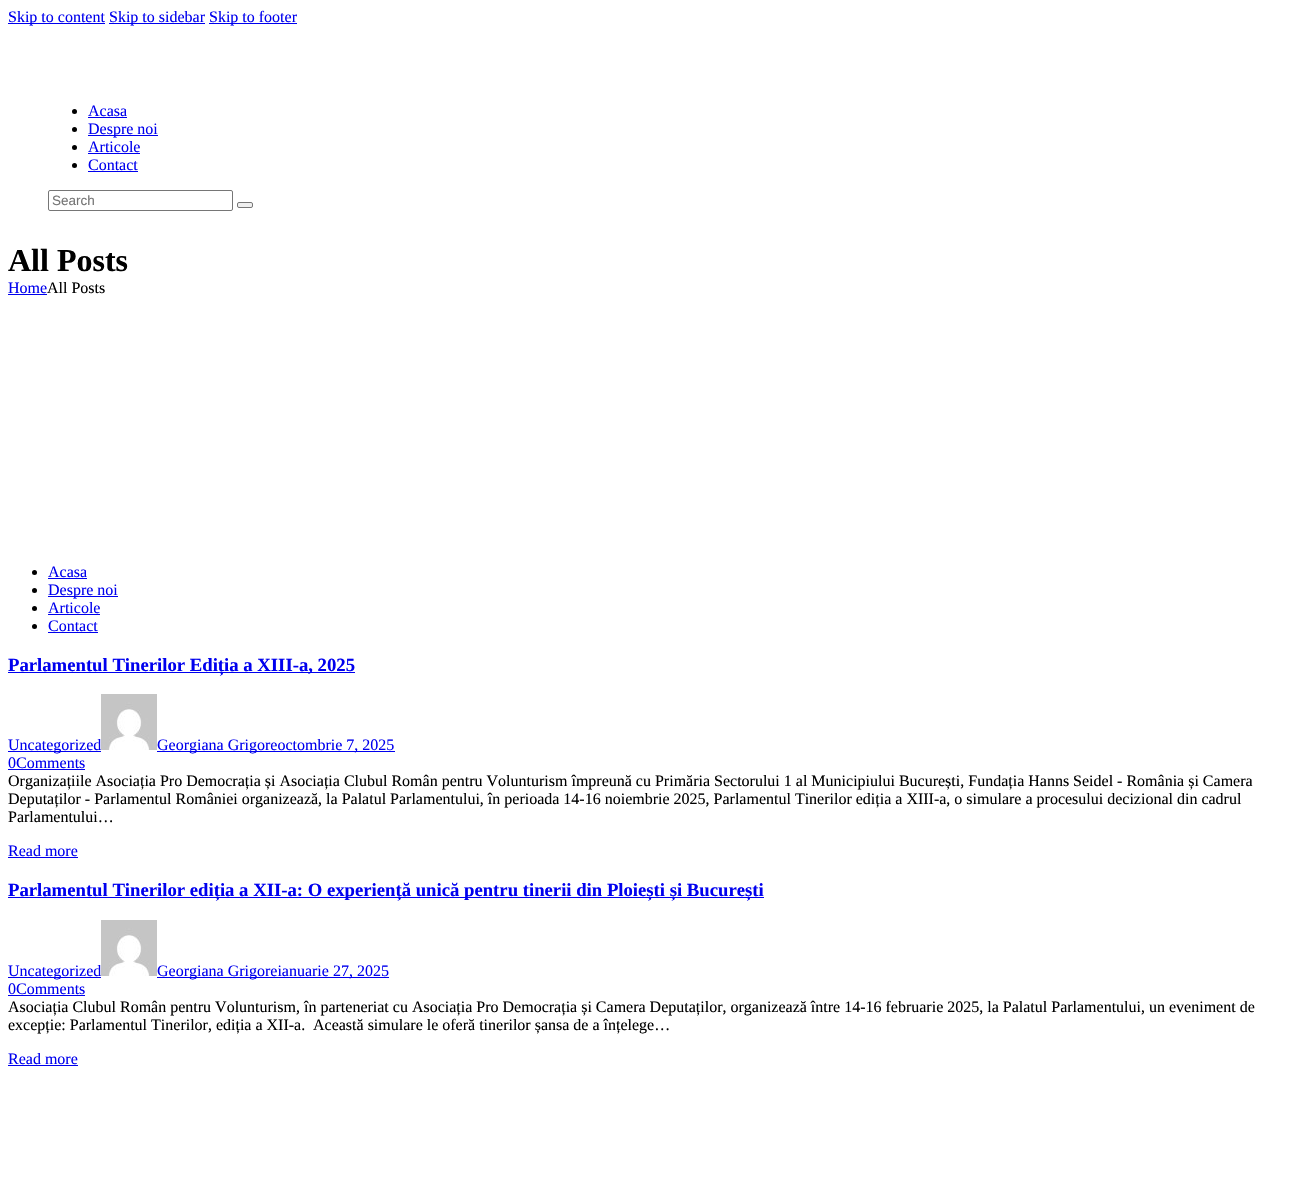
#include "include/core/SkBlurTypes.h"
#include "include/core/SkCanvas.h"
#include "include/core/SkData.h"
#include "include/core/SkFont.h"
#include "include/core/SkFontMgr.h"
#include "include/core/SkImage.h"
#include "include/core/SkMaskFilter.h"
#include "include/core/SkPaint.h"
#include "include/core/SkPathBuilder.h"
#include "include/core/SkTextBlob.h"
#include "include/effects/SkDashPathEffect.h"
#include "include/effects/SkGradientShader.h"
#include "include/utils/SkParsePath.h"

extern sk_sp<SkFontMgr> fontMgr;

static SkFont font(const char* family, int weight, float size, bool italic = false) {
    SkFontStyle style(weight, SkFontStyle::kNormal_Width,
        italic ? SkFontStyle::kItalic_Slant : SkFontStyle::kUpright_Slant);
    SkFont result(fontMgr->matchFamilyStyle(family, style), size);
    result.setSubpixel(true);
    return result;
}

static void drawLabel(SkCanvas* canvas, const char* s, float x, float y, const SkFont& font, SkColor color) {
    SkPaint ink(SkColor4f::FromColor(color));
    ink.setAntiAlias(true);
    canvas->drawString(s, x, y, font, ink);
}

static void fillRect(SkCanvas* canvas, float x, float y, float w, float h, SkColor color) {
    SkPaint ink(SkColor4f::FromColor(color));
    ink.setAntiAlias(true);
    canvas->drawRect(SkRect::MakeXYWH(x, y, w, h), ink);
}

static void drawPhoto(SkCanvas* canvas, const char* path, float x, float y, float w, float h) {
    auto image = SkImages::DeferredFromEncodedData(SkData::MakeFromFileName(path));
    canvas->drawImageRect(image, SkRect::MakeXYWH(x, y, w, h), SkSamplingOptions());
}

void draw(SkCanvas* canvas) {
    SkPaint paint;
    paint.setAntiAlias(true);
    canvas->clear(0xFFFFFFFF);
    fillRect(canvas, 8, 23, 97, 1, 0xFF0000EE);
    SkFont font1 = font("Liberation Serif", 400, 16);
    drawLabel(canvas, "Skip to content", 8, 22, font1, 0xFF0000EE);
    fillRect(canvas, 109, 23, 96, 1, 0xFF0000EE);
    drawLabel(canvas, "Skip to sidebar", 109, 22, font1, 0xFF0000EE);
    fillRect(canvas, 209, 23, 88, 1, 0xFF0000EE);
    drawLabel(canvas, "Skip to footer", 209, 22, font1, 0xFF0000EE);
    paint.setColor(0xFF000000);
    canvas->drawCircle(74.5f, 111.5f, 2.5f, paint);
    drawLabel(canvas, "Acasa", 88, 116, font1, 0xFF0000EE);
    fillRect(canvas, 88, 117, 39, 1, 0xFF0000EE);
    canvas->drawCircle(74.5f, 129.5f, 2.5f, paint);
    fillRect(canvas, 88, 135, 70, 1, 0xFF0000EE);
    drawLabel(canvas, "Despre noi", 88, 134, font1, 0xFF0000EE);
    canvas->drawCircle(74.5f, 147.5f, 2.5f, paint);
    drawLabel(canvas, "Articole", 88, 152, font1, 0xFF0000EE);
    fillRect(canvas, 88, 153, 52, 1, 0xFF0000EE);
    canvas->drawCircle(74.5f, 165.5f, 2.5f, paint);
    drawLabel(canvas, "Contact", 88, 170, font1, 0xFF0000EE);
    fillRect(canvas, 88, 171, 50, 1, 0xFF0000EE);
    paint.setStroke(true);
    paint.setStrokeWidth(1);
    paint.setColor(0xFF767676);
    canvas->drawRoundRect(SkRect::MakeXYWH(48.5f, 190.5f, 184, 20), 1.5f, 1.5f, paint);
    SkFont font2 = font("Liberation Sans", 400, 13.5f);
    drawLabel(canvas, "Search", 52, 205, font2, 0xFF757575);
    paint.setStroke(false);
    paint.setColor(0xFFEFEFEF);
    canvas->drawRoundRect(SkRect::MakeXYWH(237.5f, 202.5f, 15, 5), 1.5f, 1.5f, paint);
    paint.setStroke(true);
    paint.setColor(0xFF767676);
    canvas->drawRoundRect(SkRect::MakeXYWH(237.5f, 202.5f, 15, 5), 1.5f, 1.5f, paint);
    SkFont font3 = font("Liberation Serif", 700, 32);
    drawLabel(canvas, "All Posts", 8, 271, font3, 0xFF000000);
    drawLabel(canvas, "Home", 8, 293, font1, 0xFF0000EE);
    fillRect(canvas, 8, 294, 39, 1, 0xFF0000EE);
    drawLabel(canvas, "All Posts", 47, 293, font1, 0xFF000000);
    paint.setStroke(false);
    paint.setColor(0xFF000000);
    canvas->drawCircle(34.5f, 572.5f, 2.5f, paint);
    drawLabel(canvas, "Acasa", 48, 577, font1, 0xFF0000EE);
    fillRect(canvas, 48, 578, 39, 1, 0xFF0000EE);
    canvas->drawCircle(34.5f, 590.5f, 2.5f, paint);
    fillRect(canvas, 48, 596, 70, 1, 0xFF0000EE);
    drawLabel(canvas, "Despre noi", 48, 595, font1, 0xFF0000EE);
    canvas->drawCircle(34.5f, 608.5f, 2.5f, paint);
    drawLabel(canvas, "Articole", 48, 613, font1, 0xFF0000EE);
    fillRect(canvas, 48, 614, 52, 1, 0xFF0000EE);
    canvas->drawCircle(34.5f, 626.5f, 2.5f, paint);
    drawLabel(canvas, "Contact", 48, 631, font1, 0xFF0000EE);
    fillRect(canvas, 48, 632, 50, 1, 0xFF0000EE);
    fillRect(canvas, 8, 672, 347, 1, 0xFF0000EE);
    SkFont font4 = font("Liberation Serif", 700, 18.7f);
    drawLabel(canvas, "Parlamentul Tinerilor Ediția a XIII-a, 2025", 8, 671, font4, 0xFF0000EE);
    fillRect(canvas, 8, 751, 93, 1, 0xFF0000EE);
    drawLabel(canvas, "Uncategorized", 8, 750, font1, 0xFF0000EE);
    drawPhoto(canvas, "assets/img1.png", 101, 694, 56, 56);
    fillRect(canvas, 157, 751, 238, 1, 0xFF0000EE);
    drawLabel(canvas, "Georgiana Grigoreoctombrie 7, 2025", 157, 750, font1, 0xFF0000EE);
    drawLabel(canvas, "0Comments", 8, 768, font1, 0xFF0000EE);
    fillRect(canvas, 8, 769, 77, 1, 0xFF0000EE);
    drawLabel(canvas, "Organizațiile Asociația Pro Democrația și Asociația Clubul Român pentru Volunturism împreună cu Primăria Sectorului 1 al Municipiului București, Fundația Hanns Seidel - România și Camera", 8, 786, font1, 0xFF000000);
    drawLabel(canvas, "Deputaților - Parlamentul României organizează, la Palatul Parlamentului, în perioada 14-16 noiembrie 2025, Parlamentul Tinerilor ediția a XIII-a, o simulare a procesului decizional din cadrul", 8, 804, font1, 0xFF000000);
    drawLabel(canvas, "Parlamentului…", 8, 822, font1, 0xFF000000);
    drawLabel(canvas, "Read more", 8, 856, font1, 0xFF0000EE);
    fillRect(canvas, 8, 857, 70, 1, 0xFF0000EE);
    fillRect(canvas, 8, 897, 756, 1, 0xFF0000EE);
    drawLabel(canvas, "Parlamentul Tinerilor ediția a XII-a: O experiență unică pentru tinerii din Ploiești și București", 8, 896, font4, 0xFF0000EE);
    fillRect(canvas, 8, 977, 93, 1, 0xFF0000EE);
    drawLabel(canvas, "Uncategorized", 8, 976, font1, 0xFF0000EE);
    drawPhoto(canvas, "assets/img1.png", 101, 920, 56, 56);
    fillRect(canvas, 157, 977, 232, 1, 0xFF0000EE);
    drawLabel(canvas, "Georgiana Grigoreianuarie 27, 2025", 157, 976, font1, 0xFF0000EE);
    drawLabel(canvas, "0Comments", 8, 994, font1, 0xFF0000EE);
    fillRect(canvas, 8, 995, 77, 1, 0xFF0000EE);
    drawLabel(canvas, "Asociația Clubul Român pentru Volunturism, în parteneriat cu Asociația Pro Democrația și Camera Deputaților, organizează între 14-16 februarie 2025, la Palatul Parlamentului, un eveniment de", 8, 1012, font1, 0xFF000000);
    drawLabel(canvas, "excepție: Parlamentul Tinerilor, ediția a XII-a.", 8, 1030, font1, 0xFF000000);
    drawLabel(canvas, "Această simulare le oferă tinerilor șansa de a înțelege…", 313, 1030, font1, 0xFF000000);
    drawLabel(canvas, "Read more", 8, 1064, font1, 0xFF0000EE);
    fillRect(canvas, 8, 1065, 70, 1, 0xFF0000EE);
}
